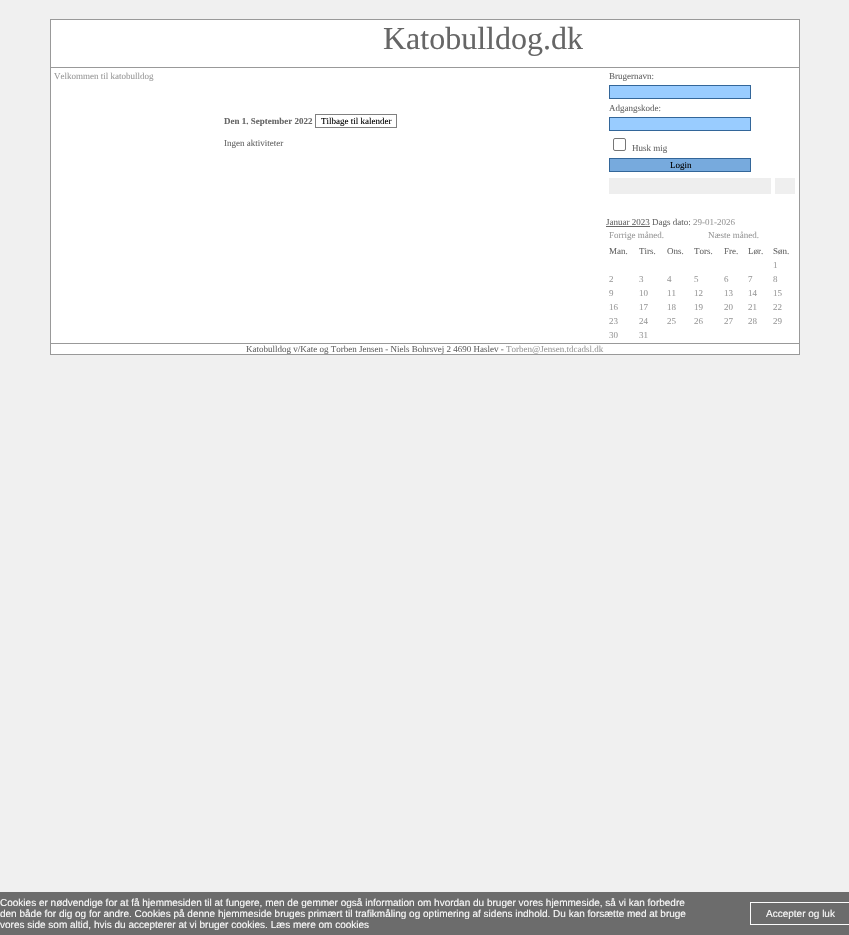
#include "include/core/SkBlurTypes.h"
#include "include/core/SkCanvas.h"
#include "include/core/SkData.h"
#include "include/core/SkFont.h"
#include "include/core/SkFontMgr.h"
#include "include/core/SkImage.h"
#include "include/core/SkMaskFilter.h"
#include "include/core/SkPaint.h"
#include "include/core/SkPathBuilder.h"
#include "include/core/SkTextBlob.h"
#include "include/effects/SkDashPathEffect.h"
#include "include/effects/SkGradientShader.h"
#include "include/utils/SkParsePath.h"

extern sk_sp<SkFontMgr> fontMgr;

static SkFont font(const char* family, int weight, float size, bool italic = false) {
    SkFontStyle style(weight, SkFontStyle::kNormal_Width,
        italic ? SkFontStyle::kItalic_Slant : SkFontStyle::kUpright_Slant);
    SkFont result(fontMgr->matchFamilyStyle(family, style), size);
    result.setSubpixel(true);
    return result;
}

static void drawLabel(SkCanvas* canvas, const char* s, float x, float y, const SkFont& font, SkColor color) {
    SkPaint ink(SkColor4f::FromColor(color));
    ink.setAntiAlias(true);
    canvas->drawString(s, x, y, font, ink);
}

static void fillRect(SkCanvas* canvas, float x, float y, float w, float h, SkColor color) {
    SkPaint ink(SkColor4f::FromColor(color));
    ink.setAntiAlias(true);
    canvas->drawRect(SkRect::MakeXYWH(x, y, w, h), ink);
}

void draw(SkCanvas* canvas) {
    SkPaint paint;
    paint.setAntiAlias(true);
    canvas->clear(0xFFF0F0F0);
    fillRect(canvas, 50, 19, 750, 336, 0xFF999999);
    fillRect(canvas, 51, 20, 748, 47, 0xFFFFFFFF);
    SkFont font1 = font("Liberation Serif", 400, 32);
    drawLabel(canvas, "Katobulldog.dk", 383, 49, font1, 0xFF666666);
    fillRect(canvas, 51, 68, 748, 275, 0xFFFFFFFF);
    SkFont font2 = font("Liberation Serif", 400, 9);
    drawLabel(canvas, "Velkommen til katobulldog", 54, 79, font2, 0xFF999999);
    SkFont font3 = font("Liberation Serif", 700, 9);
    drawLabel(canvas, "Den 1. September 2022", 224, 124, font3, 0xFF666666);
    paint.setStroke(true);
    paint.setStrokeWidth(1);
    paint.setColor(0xFF808080);
    canvas->drawRect(SkRect::MakeXYWH(315.5f, 114.5f, 81, 13), paint);
    drawLabel(canvas, "Tilbage til kalender", 321, 124, font2, 0xFF000000);
    drawLabel(canvas, "Ingen aktiviteter", 224, 146, font2, 0xFF666666);
    drawLabel(canvas, "Brugernavn:", 609, 79, font2, 0xFF666666);
    paint.setStroke(false);
    paint.setColor(0xFF99CCFF);
    canvas->drawRect(SkRect::MakeXYWH(609.5f, 85.5f, 141, 13), paint);
    paint.setStroke(true);
    paint.setColor(0xFF336699);
    canvas->drawRect(SkRect::MakeXYWH(609.5f, 85.5f, 141, 13), paint);
    drawLabel(canvas, "Adgangskode:", 609, 111, font2, 0xFF666666);
    paint.setStroke(false);
    paint.setColor(0xFF99CCFF);
    canvas->drawRect(SkRect::MakeXYWH(609.5f, 117.5f, 141, 13), paint);
    paint.setStroke(true);
    paint.setColor(0xFF336699);
    canvas->drawRect(SkRect::MakeXYWH(609.5f, 117.5f, 141, 13), paint);
    paint.setColor(0xFF767676);
    canvas->drawRoundRect(SkRect::MakeXYWH(613.5f, 138.5f, 12, 12), 1.5f, 1.5f, paint);
    drawLabel(canvas, "Husk mig", 632, 151, font2, 0xFF666666);
    paint.setStroke(false);
    paint.setColor(0xFF77AADD);
    canvas->drawRect(SkRect::MakeXYWH(609.5f, 158.5f, 141, 13), paint);
    paint.setStroke(true);
    paint.setColor(0xFF336699);
    canvas->drawRect(SkRect::MakeXYWH(609.5f, 158.5f, 141, 13), paint);
    drawLabel(canvas, "Login", 670, 168, font2, 0xFF000000);
    fillRect(canvas, 609, 178, 162, 16, 0xFFEEEEEE);
    fillRect(canvas, 775, 178, 20, 16, 0xFFEFEFEF);
    fillRect(canvas, 606, 226, 44, 1, 0xFF666666);
    drawLabel(canvas, "Januar 2023 Dags dato:", 606, 225, font2, 0xFF666666);
    drawLabel(canvas, "29-01-2026", 693, 225, font2, 0xFF999999);
    drawLabel(canvas, "Forrige måned.", 609, 238, font2, 0xFF999999);
    drawLabel(canvas, "Næste måned.", 708, 238, font2, 0xFF999999);
    drawLabel(canvas, "Man.", 609, 254, font2, 0xFF666666);
    drawLabel(canvas, "Tirs.", 639, 254, font2, 0xFF666666);
    drawLabel(canvas, "Ons.", 667, 254, font2, 0xFF666666);
    drawLabel(canvas, "Tors.", 694, 254, font2, 0xFF666666);
    drawLabel(canvas, "Fre.", 724, 254, font2, 0xFF666666);
    drawLabel(canvas, "Lør.", 748, 254, font2, 0xFF666666);
    drawLabel(canvas, "Søn.", 773, 254, font2, 0xFF666666);
    drawLabel(canvas, "1", 773, 268, font2, 0xFF999999);
    drawLabel(canvas, "2", 609, 282, font2, 0xFF999999);
    drawLabel(canvas, "3", 639, 282, font2, 0xFF999999);
    drawLabel(canvas, "4", 667, 282, font2, 0xFF999999);
    drawLabel(canvas, "5", 694, 282, font2, 0xFF999999);
    drawLabel(canvas, "6", 724, 282, font2, 0xFF999999);
    drawLabel(canvas, "7", 748, 282, font2, 0xFF999999);
    drawLabel(canvas, "8", 773, 282, font2, 0xFF999999);
    drawLabel(canvas, "9", 609, 296, font2, 0xFF999999);
    drawLabel(canvas, "10", 639, 296, font2, 0xFF999999);
    drawLabel(canvas, "11", 667, 296, font2, 0xFF999999);
    drawLabel(canvas, "12", 694, 296, font2, 0xFF999999);
    drawLabel(canvas, "13", 724, 296, font2, 0xFF999999);
    drawLabel(canvas, "14", 748, 296, font2, 0xFF999999);
    drawLabel(canvas, "15", 773, 296, font2, 0xFF999999);
    drawLabel(canvas, "16", 609, 310, font2, 0xFF999999);
    drawLabel(canvas, "17", 639, 310, font2, 0xFF999999);
    drawLabel(canvas, "18", 667, 310, font2, 0xFF999999);
    drawLabel(canvas, "19", 694, 310, font2, 0xFF999999);
    drawLabel(canvas, "20", 724, 310, font2, 0xFF999999);
    drawLabel(canvas, "21", 748, 310, font2, 0xFF999999);
    drawLabel(canvas, "22", 773, 310, font2, 0xFF999999);
    drawLabel(canvas, "23", 609, 324, font2, 0xFF999999);
    drawLabel(canvas, "24", 639, 324, font2, 0xFF999999);
    drawLabel(canvas, "25", 667, 324, font2, 0xFF999999);
    drawLabel(canvas, "26", 694, 324, font2, 0xFF999999);
    drawLabel(canvas, "27", 724, 324, font2, 0xFF999999);
    drawLabel(canvas, "28", 748, 324, font2, 0xFF999999);
    drawLabel(canvas, "29", 773, 324, font2, 0xFF999999);
    drawLabel(canvas, "30", 609, 338, font2, 0xFF999999);
    drawLabel(canvas, "31", 639, 338, font2, 0xFF999999);
    fillRect(canvas, 51, 344, 748, 10, 0xFFFFFFFF);
    drawLabel(canvas, "Katobulldog v/Kate og Torben Jensen - Niels Bohrsvej 2 4690 Haslev -", 246, 352, font2, 0xFF666666);
    drawLabel(canvas, "Torben@Jensen.tdcadsl.dk", 506, 352, font2, 0xFF999999);
    fillRect(canvas, 0, 892, 849, 43, 0xFF6C6C6C);
    SkFont font4 = font("Liberation Sans", 400, 10);
    drawLabel(canvas, "Cookies er nødvendige for at få hjemmesiden til at fungere, men de gemmer også information om hvordan du bruger vores hjemmeside, så vi kan forbedre", 0, 906, font4, 0xFFFBFBFB);
    drawLabel(canvas, "den både for dig og for andre. Cookies på denne hjemmeside bruges primært til trafikmåling og optimering af sidens indhold. Du kan forsætte med at bruge", 0, 917, font4, 0xFFFBFBFB);
    drawLabel(canvas, "vores side som altid, hvis du accepterer at vi bruger cookies. Læs mere om cookies", 0, 928, font4, 0xFFFBFBFB);
    paint.setColor(0xFFFBFBFB);
    canvas->drawRect(SkRect::MakeXYWH(750.5f, 902.5f, 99, 22), paint);
    drawLabel(canvas, "Accepter og luk", 766, 917, font4, 0xFFFBFBFB);
}
